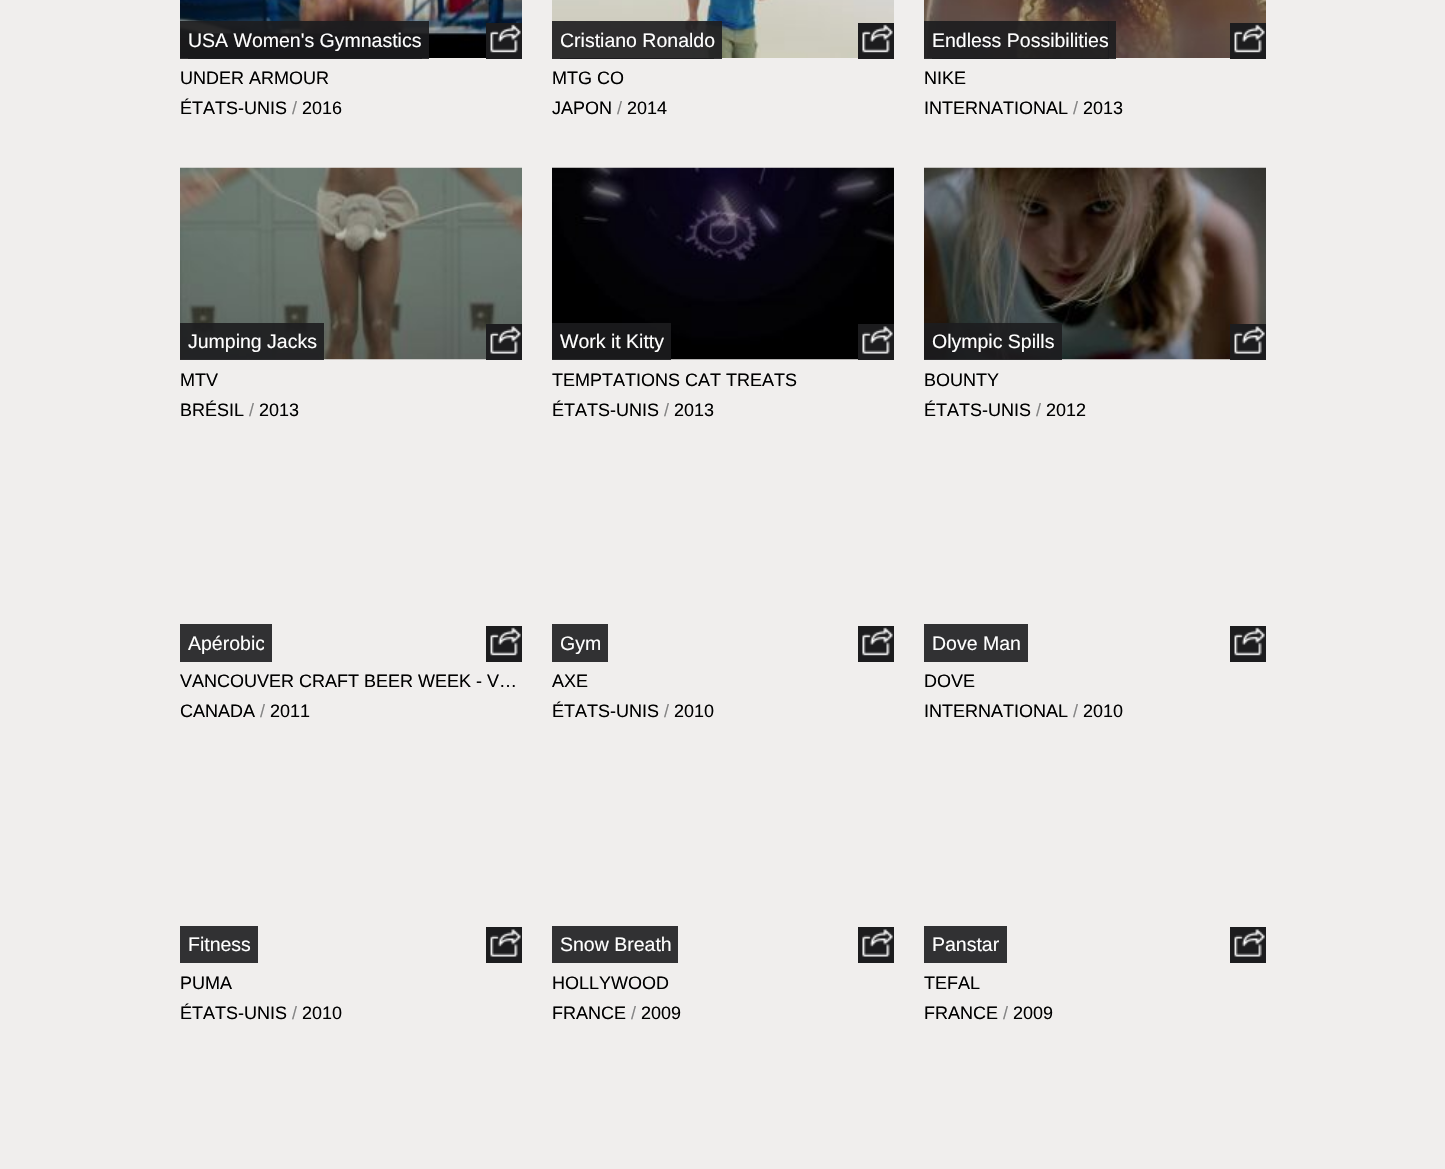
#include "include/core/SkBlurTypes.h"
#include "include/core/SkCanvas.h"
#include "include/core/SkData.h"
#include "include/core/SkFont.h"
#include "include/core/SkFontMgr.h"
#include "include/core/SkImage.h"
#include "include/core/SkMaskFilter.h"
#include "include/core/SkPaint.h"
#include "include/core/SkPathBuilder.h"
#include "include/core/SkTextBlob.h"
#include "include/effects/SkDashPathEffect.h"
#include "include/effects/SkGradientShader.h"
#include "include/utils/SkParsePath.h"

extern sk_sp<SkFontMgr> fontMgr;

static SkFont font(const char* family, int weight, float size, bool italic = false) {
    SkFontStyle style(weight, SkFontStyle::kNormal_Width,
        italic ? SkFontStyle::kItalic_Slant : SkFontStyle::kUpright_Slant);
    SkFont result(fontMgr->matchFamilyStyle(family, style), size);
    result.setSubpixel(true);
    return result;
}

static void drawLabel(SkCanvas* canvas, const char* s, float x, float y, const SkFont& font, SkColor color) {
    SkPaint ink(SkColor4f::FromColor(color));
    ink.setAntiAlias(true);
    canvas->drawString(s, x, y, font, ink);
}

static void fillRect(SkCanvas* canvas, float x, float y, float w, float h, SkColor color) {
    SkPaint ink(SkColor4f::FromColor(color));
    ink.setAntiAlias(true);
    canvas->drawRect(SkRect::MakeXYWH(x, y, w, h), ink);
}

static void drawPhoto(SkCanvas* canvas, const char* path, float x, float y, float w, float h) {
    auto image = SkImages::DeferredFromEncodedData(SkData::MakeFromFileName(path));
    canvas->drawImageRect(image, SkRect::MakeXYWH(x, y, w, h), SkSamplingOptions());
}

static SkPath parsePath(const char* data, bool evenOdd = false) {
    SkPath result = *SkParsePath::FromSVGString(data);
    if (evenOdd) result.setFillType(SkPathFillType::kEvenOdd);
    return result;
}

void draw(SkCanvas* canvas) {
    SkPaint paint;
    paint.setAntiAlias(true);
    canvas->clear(0xFFF0EEED);
    drawPhoto(canvas, "assets/img1.png", 180, 0, 342, 58);
    paint.setColor(0xE61C1C1E);
    canvas->drawPath(parsePath("M180 21V59H414V58H188V21Z"), paint);
    canvas->drawPath(parsePath("M195 58V59H429V21H422V58Z"), paint);
    fillRect(canvas, 188, 21, 234, 38, 0xE61C1C1E);
    SkFont font1 = font("Liberation Sans", 400, 19.5f);
    drawLabel(canvas, "USA Women's Gymnastics", 188, 47, font1, 0xFFFFFFFF);
    fillRect(canvas, 486, 23, 36, 36, 0xFF1C1C1E);
    drawPhoto(canvas, "assets/img2.png", 490, 24, 31, 29);
    SkFont font2 = font("Liberation Sans", 400, 18);
    drawLabel(canvas, "UNDER ARMOUR", 180, 84, font2, 0xFF000000);
    drawLabel(canvas, "ÉTATS-UNIS", 180, 114, font2, 0xFF000000);
    drawLabel(canvas, "/", 292, 114, font2, 0xFF858585);
    drawLabel(canvas, "2016", 302, 114, font2, 0xFF000000);
    drawPhoto(canvas, "assets/img3.png", 552, 0, 342, 58);
    canvas->drawPath(parsePath("M552 21V59H707V58H560V21Z"), paint);
    canvas->drawPath(parsePath("M567 58V59H722V21H714V58Z"), paint);
    fillRect(canvas, 560, 21, 154, 38, 0xE61C1C1E);
    drawLabel(canvas, "Cristiano Ronaldo", 560, 47, font1, 0xFFFFFFFF);
    fillRect(canvas, 858, 23, 36, 36, 0xFF1C1C1E);
    drawPhoto(canvas, "assets/img4.png", 862, 24, 31, 29);
    drawLabel(canvas, "MTG CO", 552, 84, font2, 0xFF000000);
    drawLabel(canvas, "JAPON", 552, 114, font2, 0xFF000000);
    drawLabel(canvas, "/", 617, 114, font2, 0xFF858585);
    drawLabel(canvas, "2014", 627, 114, font2, 0xFF000000);
    drawPhoto(canvas, "assets/img5.png", 924, 0, 342, 58);
    canvas->drawPath(parsePath("M924 21V59H1101V58H932V21Z"), paint);
    canvas->drawPath(parsePath("M939 58V59H1116V21H1108V58Z"), paint);
    fillRect(canvas, 932, 21, 177, 38, 0xE61C1C1E);
    drawLabel(canvas, "Endless Possibilities", 932, 47, font1, 0xFFFFFFFF);
    fillRect(canvas, 1230, 23, 36, 36, 0xFF1C1C1E);
    drawPhoto(canvas, "assets/img6.png", 1234, 24, 31, 29);
    drawLabel(canvas, "NIKE", 924, 84, font2, 0xFF000000);
    drawLabel(canvas, "INTERNATIONAL", 924, 114, font2, 0xFF000000);
    drawLabel(canvas, "/", 1073, 114, font2, 0xFF858585);
    drawLabel(canvas, "2013", 1083, 114, font2, 0xFF000000);
    drawPhoto(canvas, "assets/img7.png", 180, 167, 342, 193);
    fillRect(canvas, 180, 323, 8, 37, 0xE61C1C1E);
    fillRect(canvas, 188, 323, 129, 37, 0xE61C1C1E);
    drawLabel(canvas, "Jumping Jacks", 188, 348, font1, 0xFFFFFFFF);
    fillRect(canvas, 317, 323, 7, 37, 0xE61C1C1E);
    fillRect(canvas, 486, 324, 36, 36, 0xFF1C1C1E);
    drawPhoto(canvas, "assets/img8.png", 490, 326, 31, 28);
    drawLabel(canvas, "MTV", 180, 386, font2, 0xFF000000);
    drawLabel(canvas, "BRÉSIL", 180, 416, font2, 0xFF000000);
    drawLabel(canvas, "/", 249, 416, font2, 0xFF858585);
    drawLabel(canvas, "2013", 259, 416, font2, 0xFF000000);
    drawPhoto(canvas, "assets/img9.png", 552, 167, 342, 193);
    fillRect(canvas, 552, 323, 8, 37, 0xE61C1C1E);
    fillRect(canvas, 663, 323, 8, 37, 0xE61C1C1E);
    fillRect(canvas, 560, 323, 103, 37, 0xE61C1C1E);
    drawLabel(canvas, "Work it Kitty", 560, 348, font1, 0xFFFFFFFF);
    fillRect(canvas, 858, 324, 36, 36, 0xFF1C1C1E);
    drawPhoto(canvas, "assets/img10.png", 862, 326, 31, 28);
    drawLabel(canvas, "TEMPTATIONS CAT TREATS", 552, 386, font2, 0xFF000000);
    drawLabel(canvas, "ÉTATS-UNIS", 552, 416, font2, 0xFF000000);
    drawLabel(canvas, "/", 664, 416, font2, 0xFF858585);
    drawLabel(canvas, "2013", 674, 416, font2, 0xFF000000);
    drawPhoto(canvas, "assets/img11.png", 924, 167, 342, 193);
    fillRect(canvas, 932, 323, 123, 37, 0xE61C1C1E);
    drawLabel(canvas, "Olympic Spills", 932, 348, font1, 0xFFFFFFFF);
    fillRect(canvas, 924, 323, 8, 37, 0xE61C1C1E);
    fillRect(canvas, 1055, 323, 7, 37, 0xE61C1C1E);
    fillRect(canvas, 1230, 324, 36, 36, 0xFF1C1C1E);
    drawPhoto(canvas, "assets/img12.png", 1234, 326, 31, 28);
    drawLabel(canvas, "BOUNTY", 924, 386, font2, 0xFF000000);
    drawLabel(canvas, "ÉTATS-UNIS", 924, 416, font2, 0xFF000000);
    drawLabel(canvas, "/", 1036, 416, font2, 0xFF858585);
    drawLabel(canvas, "2012", 1046, 416, font2, 0xFF000000);
    paint.setColor(0xFF313133);
    canvas->drawPath(parsePath("M180 624V662H257H188V624Z"), paint);
    fillRect(canvas, 188, 624, 76, 38, 0xFF313133);
    drawLabel(canvas, "Apérobic", 188, 650, font1, 0xFFFFFFFF);
    canvas->drawPath(parsePath("M195 662H272V624H264V662Z"), paint);
    fillRect(canvas, 486, 626, 36, 36, 0xFF1C1C1E);
    drawPhoto(canvas, "assets/img2.png", 490, 627, 31, 29);
    drawLabel(canvas, "VANCOUVER CRAFT BEER WEEK - V…", 180, 687, font2, 0xFF000000);
    drawLabel(canvas, "CANADA", 180, 717, font2, 0xFF000000);
    drawLabel(canvas, "/", 260, 717, font2, 0xFF858585);
    drawLabel(canvas, "2011", 270, 717, font2, 0xFF000000);
    canvas->drawPath(parsePath("M552 624V662H593H560V624ZM567 662H608V624H600V662Z"), paint);
    fillRect(canvas, 560, 624, 40, 38, 0xFF313133);
    drawLabel(canvas, "Gym", 560, 650, font1, 0xFFFFFFFF);
    fillRect(canvas, 858, 626, 36, 36, 0xFF1C1C1E);
    drawPhoto(canvas, "assets/img4.png", 862, 627, 31, 29);
    drawLabel(canvas, "AXE", 552, 687, font2, 0xFF000000);
    drawLabel(canvas, "ÉTATS-UNIS", 552, 717, font2, 0xFF000000);
    drawLabel(canvas, "/", 664, 717, font2, 0xFF858585);
    drawLabel(canvas, "2010", 674, 717, font2, 0xFF000000);
    fillRect(canvas, 932, 624, 88, 38, 0xFF313133);
    drawLabel(canvas, "Dove Man", 932, 650, font1, 0xFFFFFFFF);
    canvas->drawPath(parsePath("M924 624V662H1013H932V624Z"), paint);
    canvas->drawPath(parsePath("M939 662H1028V624H1020V662Z"), paint);
    fillRect(canvas, 1230, 626, 36, 36, 0xFF1C1C1E);
    drawPhoto(canvas, "assets/img6.png", 1234, 627, 31, 29);
    drawLabel(canvas, "DOVE", 924, 687, font2, 0xFF000000);
    drawLabel(canvas, "INTERNATIONAL", 924, 717, font2, 0xFF000000);
    drawLabel(canvas, "/", 1073, 717, font2, 0xFF858585);
    drawLabel(canvas, "2010", 1083, 717, font2, 0xFF000000);
    fillRect(canvas, 188, 926, 70, 37, 0xFF313133);
    drawLabel(canvas, "Fitness", 188, 951, font1, 0xFFFFFFFF);
    fillRect(canvas, 180, 926, 8, 37, 0xFF313133);
    fillRect(canvas, 486, 927, 36, 36, 0xFF1C1C1E);
    drawPhoto(canvas, "assets/img8.png", 490, 929, 31, 28);
    drawLabel(canvas, "PUMA", 180, 989, font2, 0xFF000000);
    drawLabel(canvas, "ÉTATS-UNIS", 180, 1019, font2, 0xFF000000);
    drawLabel(canvas, "/", 292, 1019, font2, 0xFF858585);
    drawLabel(canvas, "2010", 302, 1019, font2, 0xFF000000);
    fillRect(canvas, 560, 926, 118, 37, 0xFF313133);
    drawLabel(canvas, "Snow Breath", 560, 951, font1, 0xFFFFFFFF);
    fillRect(canvas, 552, 926, 8, 37, 0xFF313133);
    fillRect(canvas, 858, 927, 36, 36, 0xFF1C1C1E);
    drawPhoto(canvas, "assets/img10.png", 862, 929, 31, 28);
    drawLabel(canvas, "HOLLYWOOD", 552, 989, font2, 0xFF000000);
    drawLabel(canvas, "FRANCE", 552, 1019, font2, 0xFF000000);
    drawLabel(canvas, "/", 631, 1019, font2, 0xFF858585);
    drawLabel(canvas, "2009", 641, 1019, font2, 0xFF000000);
    fillRect(canvas, 932, 926, 75, 37, 0xFF313133);
    drawLabel(canvas, "Panstar", 932, 951, font1, 0xFFFFFFFF);
    fillRect(canvas, 924, 926, 8, 37, 0xFF313133);
    fillRect(canvas, 1230, 927, 36, 36, 0xFF1C1C1E);
    drawPhoto(canvas, "assets/img12.png", 1234, 929, 31, 28);
    drawLabel(canvas, "TEFAL", 924, 989, font2, 0xFF000000);
    drawLabel(canvas, "FRANCE", 924, 1019, font2, 0xFF000000);
    drawLabel(canvas, "/", 1003, 1019, font2, 0xFF858585);
    drawLabel(canvas, "2009", 1013, 1019, font2, 0xFF000000);
}
